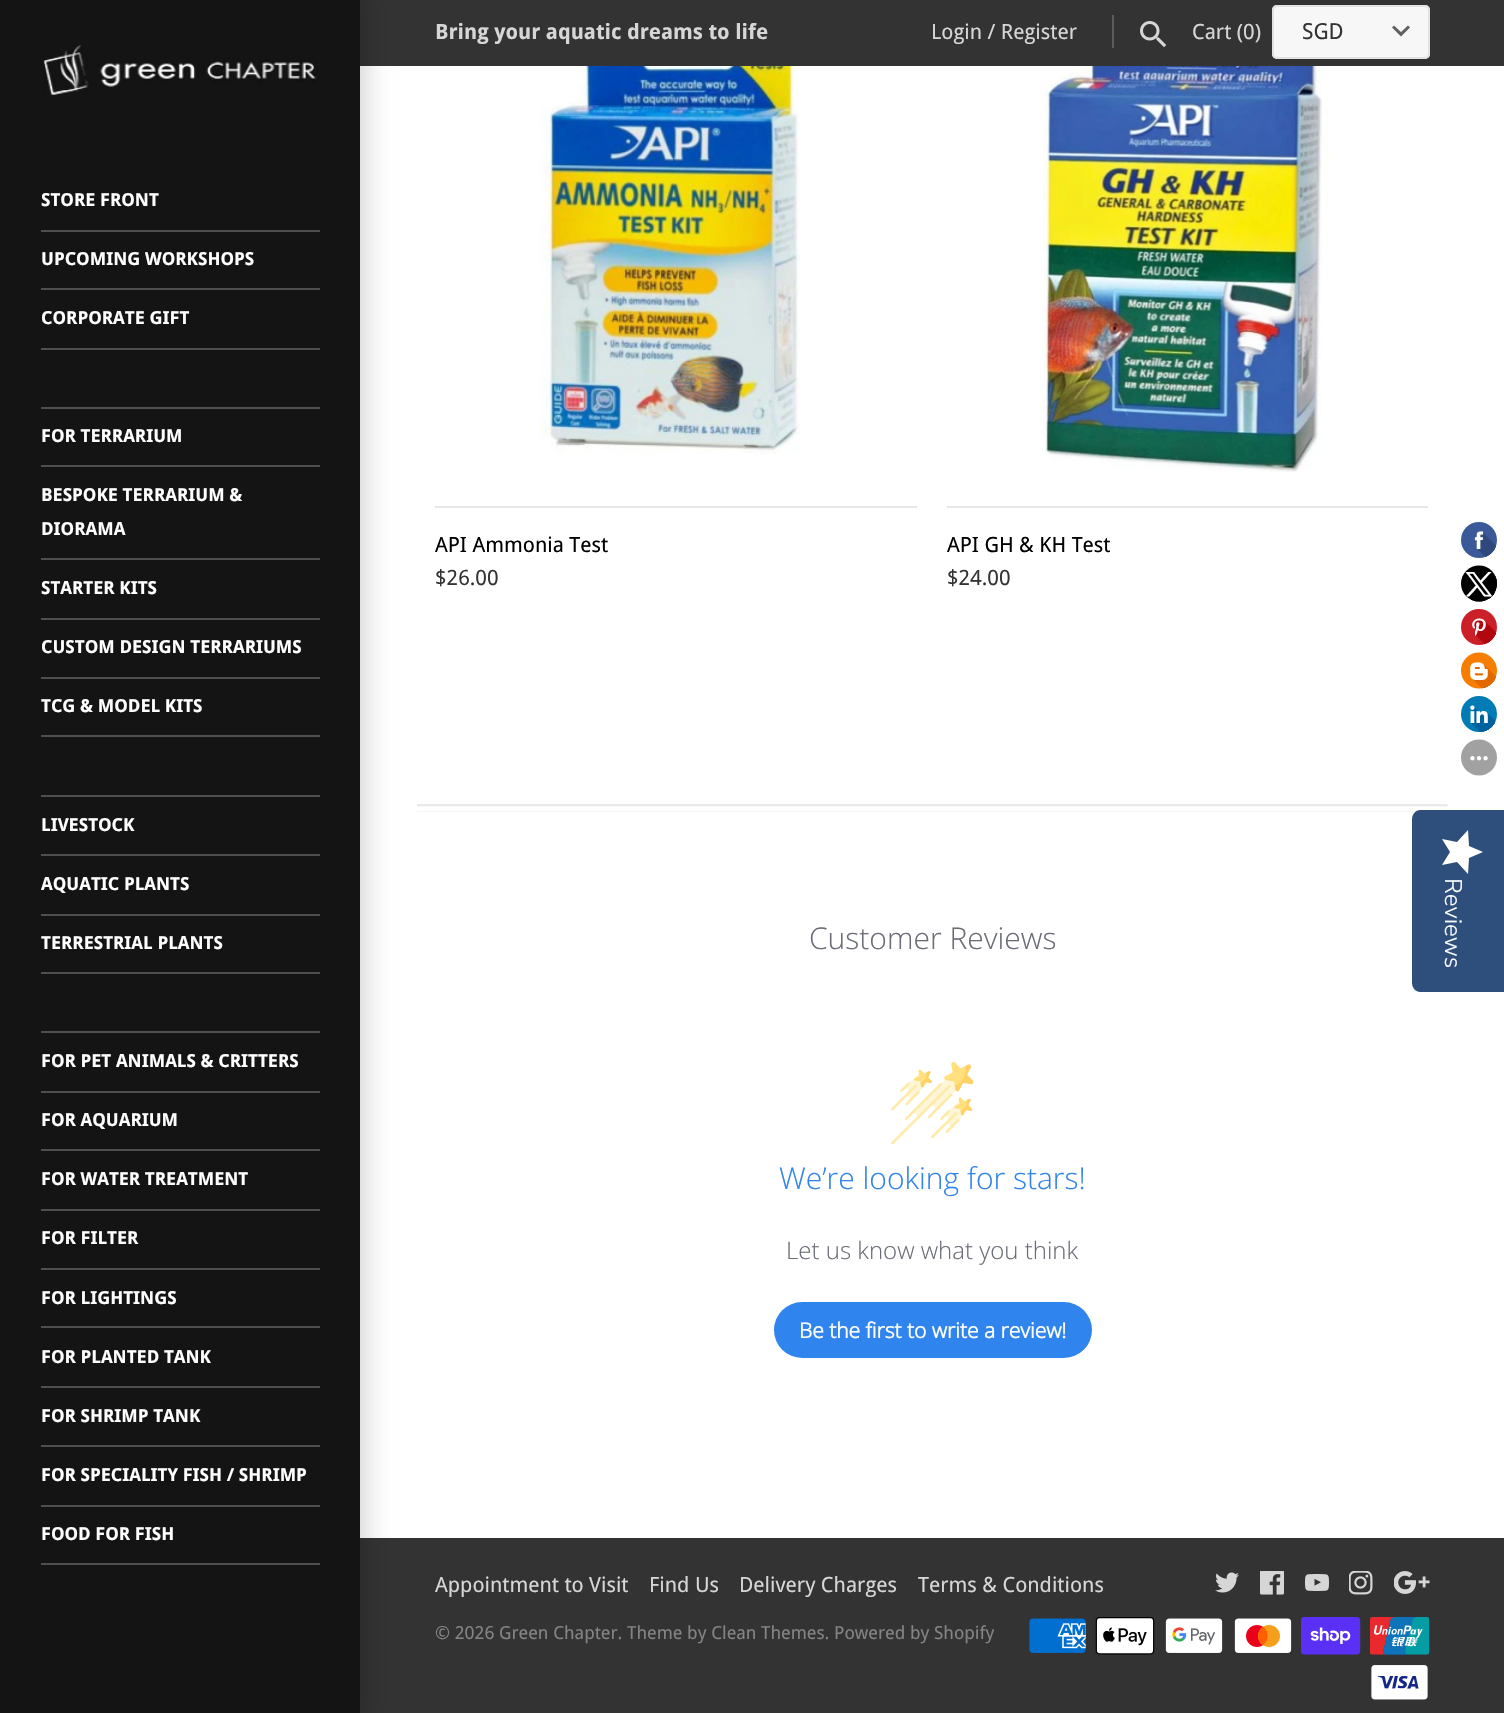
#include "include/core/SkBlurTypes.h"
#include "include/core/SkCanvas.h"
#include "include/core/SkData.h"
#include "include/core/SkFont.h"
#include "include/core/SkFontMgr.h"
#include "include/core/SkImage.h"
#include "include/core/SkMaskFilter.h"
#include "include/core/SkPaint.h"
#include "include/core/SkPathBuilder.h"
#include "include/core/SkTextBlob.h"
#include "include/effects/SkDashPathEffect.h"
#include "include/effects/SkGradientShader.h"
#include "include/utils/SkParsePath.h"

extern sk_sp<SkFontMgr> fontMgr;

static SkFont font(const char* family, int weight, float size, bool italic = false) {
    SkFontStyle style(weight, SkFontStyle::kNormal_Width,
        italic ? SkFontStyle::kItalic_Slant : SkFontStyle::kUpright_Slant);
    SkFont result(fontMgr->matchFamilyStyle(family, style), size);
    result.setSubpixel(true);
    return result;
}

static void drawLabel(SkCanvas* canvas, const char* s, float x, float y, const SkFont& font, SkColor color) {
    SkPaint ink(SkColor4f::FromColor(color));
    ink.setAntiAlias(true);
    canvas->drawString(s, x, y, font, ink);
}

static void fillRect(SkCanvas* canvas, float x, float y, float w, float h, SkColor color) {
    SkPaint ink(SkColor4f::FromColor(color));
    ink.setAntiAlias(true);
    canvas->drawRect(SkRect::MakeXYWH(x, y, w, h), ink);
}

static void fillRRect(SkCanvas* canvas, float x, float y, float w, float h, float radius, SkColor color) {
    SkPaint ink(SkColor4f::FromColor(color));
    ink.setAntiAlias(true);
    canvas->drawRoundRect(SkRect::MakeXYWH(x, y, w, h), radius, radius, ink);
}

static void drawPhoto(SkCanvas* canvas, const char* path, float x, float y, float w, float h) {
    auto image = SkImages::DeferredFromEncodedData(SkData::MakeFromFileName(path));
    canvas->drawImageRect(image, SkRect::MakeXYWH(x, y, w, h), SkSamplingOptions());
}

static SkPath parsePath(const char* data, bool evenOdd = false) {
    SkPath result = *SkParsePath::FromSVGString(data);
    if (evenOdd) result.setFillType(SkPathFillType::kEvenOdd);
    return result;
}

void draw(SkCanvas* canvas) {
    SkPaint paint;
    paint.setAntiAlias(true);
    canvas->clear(0xFFFFFFFF);
    fillRect(canvas, 360, 0, 1144, 66, 0xFF333333);
    SkFont font1 = font("Droid Sans", 700, 21);
    drawLabel(canvas, "Bring your aquatic dreams to life", 435, 39, font1, 0xFFD6D6D6);
    SkFont font2 = font("Droid Sans", 400, 21);
    drawLabel(canvas, "Login / Register", 931, 39, font2, 0xFFD6D6D6);
    fillRect(canvas, 1112, 15, 2, 33, 0xFF5C5C5C);
    drawPhoto(canvas, "assets/img1.png", 1140, 21, 27, 27);
    drawLabel(canvas, "Cart (0)", 1192, 39, font2, 0xFFD6D6D6);
    fillRRect(canvas, 1272, 5, 158, 54, 5, 0xFFF7F7F7);
    paint.setColor(0xFF616161);
    canvas->drawPath(parsePath("M1394 25.5L1401 32L1408 25.5L1410 27.5L1401 36.5L1392 27.5Z"), paint);
    paint.setStroke(true);
    paint.setStrokeWidth(2);
    paint.setColor(0xFFE2E2E2);
    canvas->drawRoundRect(SkRect::MakeXYWH(1273, 6, 156, 52), 4, 4, paint);
    SkFont font3 = font("Droid Sans", 400, 22);
    drawLabel(canvas, "SGD", 1302, 39, font3, 0xFF343434);
    fillRect(canvas, 360, 1538, 1144, 175, 0xFF333333);
    paint.setStroke(false);
    paint.setColor(0x26000000);
    paint.setMaskFilter(SkMaskFilter::MakeBlur(kNormal_SkBlurStyle, 11));
    canvas->drawRect(SkRect::MakeXYWH(-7, -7, 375, 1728), paint);
    paint.setMaskFilter(nullptr);
    fillRect(canvas, 0, 0, 360, 1713, 0xFF141414);
    drawPhoto(canvas, "assets/img2.png", 43, 45, 274, 50);
    fillRect(canvas, 41, 230, 279, 2, 0xFF4F4F4F);
    SkFont font4 = font("Droid Sans", 700, 18);
    drawLabel(canvas, "STORE FRONT", 41, 206, font4, 0xFFFFFFFF);
    fillRect(canvas, 41, 288, 279, 2, 0xFF4F4F4F);
    drawLabel(canvas, "UPCOMING WORKSHOPS", 41, 265, font4, 0xFFFFFFFF);
    fillRect(canvas, 41, 348, 279, 2, 0xFF4F4F4F);
    drawLabel(canvas, "CORPORATE GIFT", 41, 324, font4, 0xFFFFFFFF);
    fillRect(canvas, 41, 407, 279, 2, 0xFF4F4F4F);
    fillRect(canvas, 41, 465, 279, 2, 0xFF4F4F4F);
    drawLabel(canvas, "FOR TERRARIUM", 41, 442, font4, 0xFFFFFFFF);
    fillRect(canvas, 41, 558, 279, 2, 0xFF4F4F4F);
    drawLabel(canvas, "BESPOKE TERRARIUM &", 41, 501, font4, 0xFFFFFFFF);
    drawLabel(canvas, "DIORAMA", 41, 535, font4, 0xFFFFFFFF);
    fillRect(canvas, 41, 618, 279, 2, 0xFF4F4F4F);
    drawLabel(canvas, "STARTER KITS", 41, 594, font4, 0xFFFFFFFF);
    fillRect(canvas, 41, 677, 279, 2, 0xFF4F4F4F);
    drawLabel(canvas, "CUSTOM DESIGN TERRARIUMS", 41, 653, font4, 0xFFFFFFFF);
    fillRect(canvas, 41, 735, 279, 2, 0xFF4F4F4F);
    drawLabel(canvas, "TCG & MODEL KITS", 41, 712, font4, 0xFFFFFFFF);
    fillRect(canvas, 41, 795, 279, 2, 0xFF4F4F4F);
    fillRect(canvas, 41, 854, 279, 2, 0xFF4F4F4F);
    drawLabel(canvas, "LIVESTOCK", 41, 831, font4, 0xFFFFFFFF);
    fillRect(canvas, 41, 914, 279, 2, 0xFF4F4F4F);
    drawLabel(canvas, "AQUATIC PLANTS", 41, 890, font4, 0xFFFFFFFF);
    fillRect(canvas, 41, 972, 279, 2, 0xFF4F4F4F);
    drawLabel(canvas, "TERRESTRIAL PLANTS", 41, 949, font4, 0xFFFFFFFF);
    fillRect(canvas, 41, 1031, 279, 2, 0xFF4F4F4F);
    fillRect(canvas, 41, 1091, 279, 2, 0xFF4F4F4F);
    drawLabel(canvas, "FOR PET ANIMALS & CRITTERS", 41, 1067, font4, 0xFFFFFFFF);
    fillRect(canvas, 41, 1149, 279, 2, 0xFF4F4F4F);
    drawLabel(canvas, "FOR AQUARIUM", 41, 1126, font4, 0xFFFFFFFF);
    fillRect(canvas, 41, 1209, 279, 2, 0xFF4F4F4F);
    drawLabel(canvas, "FOR WATER TREATMENT", 41, 1185, font4, 0xFFFFFFFF);
    fillRect(canvas, 41, 1268, 279, 2, 0xFF4F4F4F);
    drawLabel(canvas, "FOR FILTER", 41, 1244, font4, 0xFFFFFFFF);
    fillRect(canvas, 41, 1326, 279, 2, 0xFF4F4F4F);
    drawLabel(canvas, "FOR LIGHTINGS", 41, 1304, font4, 0xFFFFFFFF);
    fillRect(canvas, 41, 1386, 279, 2, 0xFF4F4F4F);
    drawLabel(canvas, "FOR PLANTED TANK", 41, 1363, font4, 0xFFFFFFFF);
    fillRect(canvas, 41, 1445, 279, 2, 0xFF4F4F4F);
    drawLabel(canvas, "FOR SHRIMP TANK", 41, 1422, font4, 0xFFFFFFFF);
    fillRect(canvas, 41, 1505, 279, 2, 0xFF4F4F4F);
    drawLabel(canvas, "FOR SPECIALITY FISH / SHRIMP", 41, 1481, font4, 0xFFFFFFFF);
    fillRect(canvas, 41, 1563, 279, 2, 0xFF4F4F4F);
    drawLabel(canvas, "FOOD FOR FISH", 41, 1540, font4, 0xFFFFFFFF);
    drawPhoto(canvas, "assets/img3.png", 540, 66, 260, 388);
    fillRect(canvas, 435, 506, 482, 2, 0xFFE7E7E7);
    drawLabel(canvas, "API Ammonia Test", 435, 552, font2, 0xFF000000);
    drawLabel(canvas, "$26.00", 435, 585, font2, 0xFF343434);
    drawPhoto(canvas, "assets/img4.png", 1043, 66, 286, 406);
    fillRect(canvas, 947, 506, 481, 2, 0xFFE7E7E7);
    drawLabel(canvas, "API GH & KH Test", 947, 552, font2, 0xFF000000);
    drawLabel(canvas, "$24.00", 947, 585, font2, 0xFF343434);
    drawPhoto(canvas, "assets/img5.png", 417, 804, 1031, 8);
    SkFont font5 = font("Open Sans", 300, 30);
    drawLabel(canvas, "Customer Reviews", 809, 949, font5, 0xFF6B6D76);
    drawPhoto(canvas, "assets/img6.png", 891, 1062, 83, 83);
    drawLabel(canvas, "We’re looking for stars!", 779, 1189, font5, 0xFF2F84ED);
    SkFont font6 = font("Open Sans", 300, 24);
    drawLabel(canvas, "Let us know what you think", 786, 1259, font6, 0xFF6B6D76);
    fillRRect(canvas, 774, 1302, 318, 56, 28, 0xFF2F84ED);
    SkFont font7 = font("Open Sans", 700, 21);
    drawLabel(canvas, "Be the first to write a review!", 799, 1338, font7, 0xFFFFFFFF);
    drawLabel(canvas, "Appointment to Visit", 435, 1592, font2, 0xFFD6D6D6);
    drawLabel(canvas, "Find Us", 649, 1592, font2, 0xFFD6D6D6);
    drawLabel(canvas, "Delivery Charges", 739, 1592, font2, 0xFFD6D6D6);
    drawLabel(canvas, "Terms & Conditions", 918, 1592, font2, 0xFFD6D6D6);
    drawPhoto(canvas, "assets/img7.png", 1215, 1572, 24, 21);
    drawPhoto(canvas, "assets/img8.png", 1260, 1571, 24, 24);
    drawPhoto(canvas, "assets/img9.png", 1305, 1574, 24, 17);
    drawPhoto(canvas, "assets/img10.png", 1349, 1571, 24, 24);
    drawPhoto(canvas, "assets/img11.png", 1394, 1571, 36, 23);
    SkFont font8 = font("Droid Sans", 400, 18);
    drawLabel(canvas, "© 2026 Green Chapter. Theme by Clean Themes. Powered by Shopify", 435, 1639, font8, 0xFF848484);
    drawPhoto(canvas, "assets/img12.png", 1029, 1618, 57, 35);
    drawPhoto(canvas, "assets/img13.png", 1095, 1617, 60, 38);
    drawPhoto(canvas, "assets/img14.png", 1165, 1618, 58, 35);
    drawPhoto(canvas, "assets/img15.png", 1234, 1618, 58, 35);
    drawPhoto(canvas, "assets/img16.png", 1301, 1617, 60, 38);
    drawPhoto(canvas, "assets/img17.png", 1370, 1617, 60, 38);
    drawPhoto(canvas, "assets/img18.png", 1371, 1665, 57, 35);
    drawPhoto(canvas, "assets/img19.png", 1461, 522, 36, 254);
    paint.setColor(0xFF2E4F7C);
    canvas->drawPath(parsePath("M1504 810V992H1420C1416 992 1412 988 1412 983V819C1412 814 1416 810 1420 810Z"), paint);
    {
        const SkColor colors[] = {0xFFFFFFFF, 0xFFEAEAEA};
        const float stops[] = {1, 1};
        const SkPoint ends[] = {{1483, 830}, {1483, 874}};
        paint.setShader(SkGradientShader::MakeLinear(ends, colors, stops, 2, SkTileMode::kClamp));
        paint.setAlpha(255);
    }
    canvas->drawPath(parsePath("M1450 852L1442 865L1457 862L1468 874L1469 858L1483 852L1469 846L1468 830L1457 842L1442 839Z"), paint);
    SkFont font9 = font("Nunito Sans", 300, 24);
    canvas->save();
    canvas->rotate(90, 1445, 878);
    drawLabel(canvas, "Reviews", 1445, 878, font9, 0xFFFFFFFF);
    canvas->restore();
}
